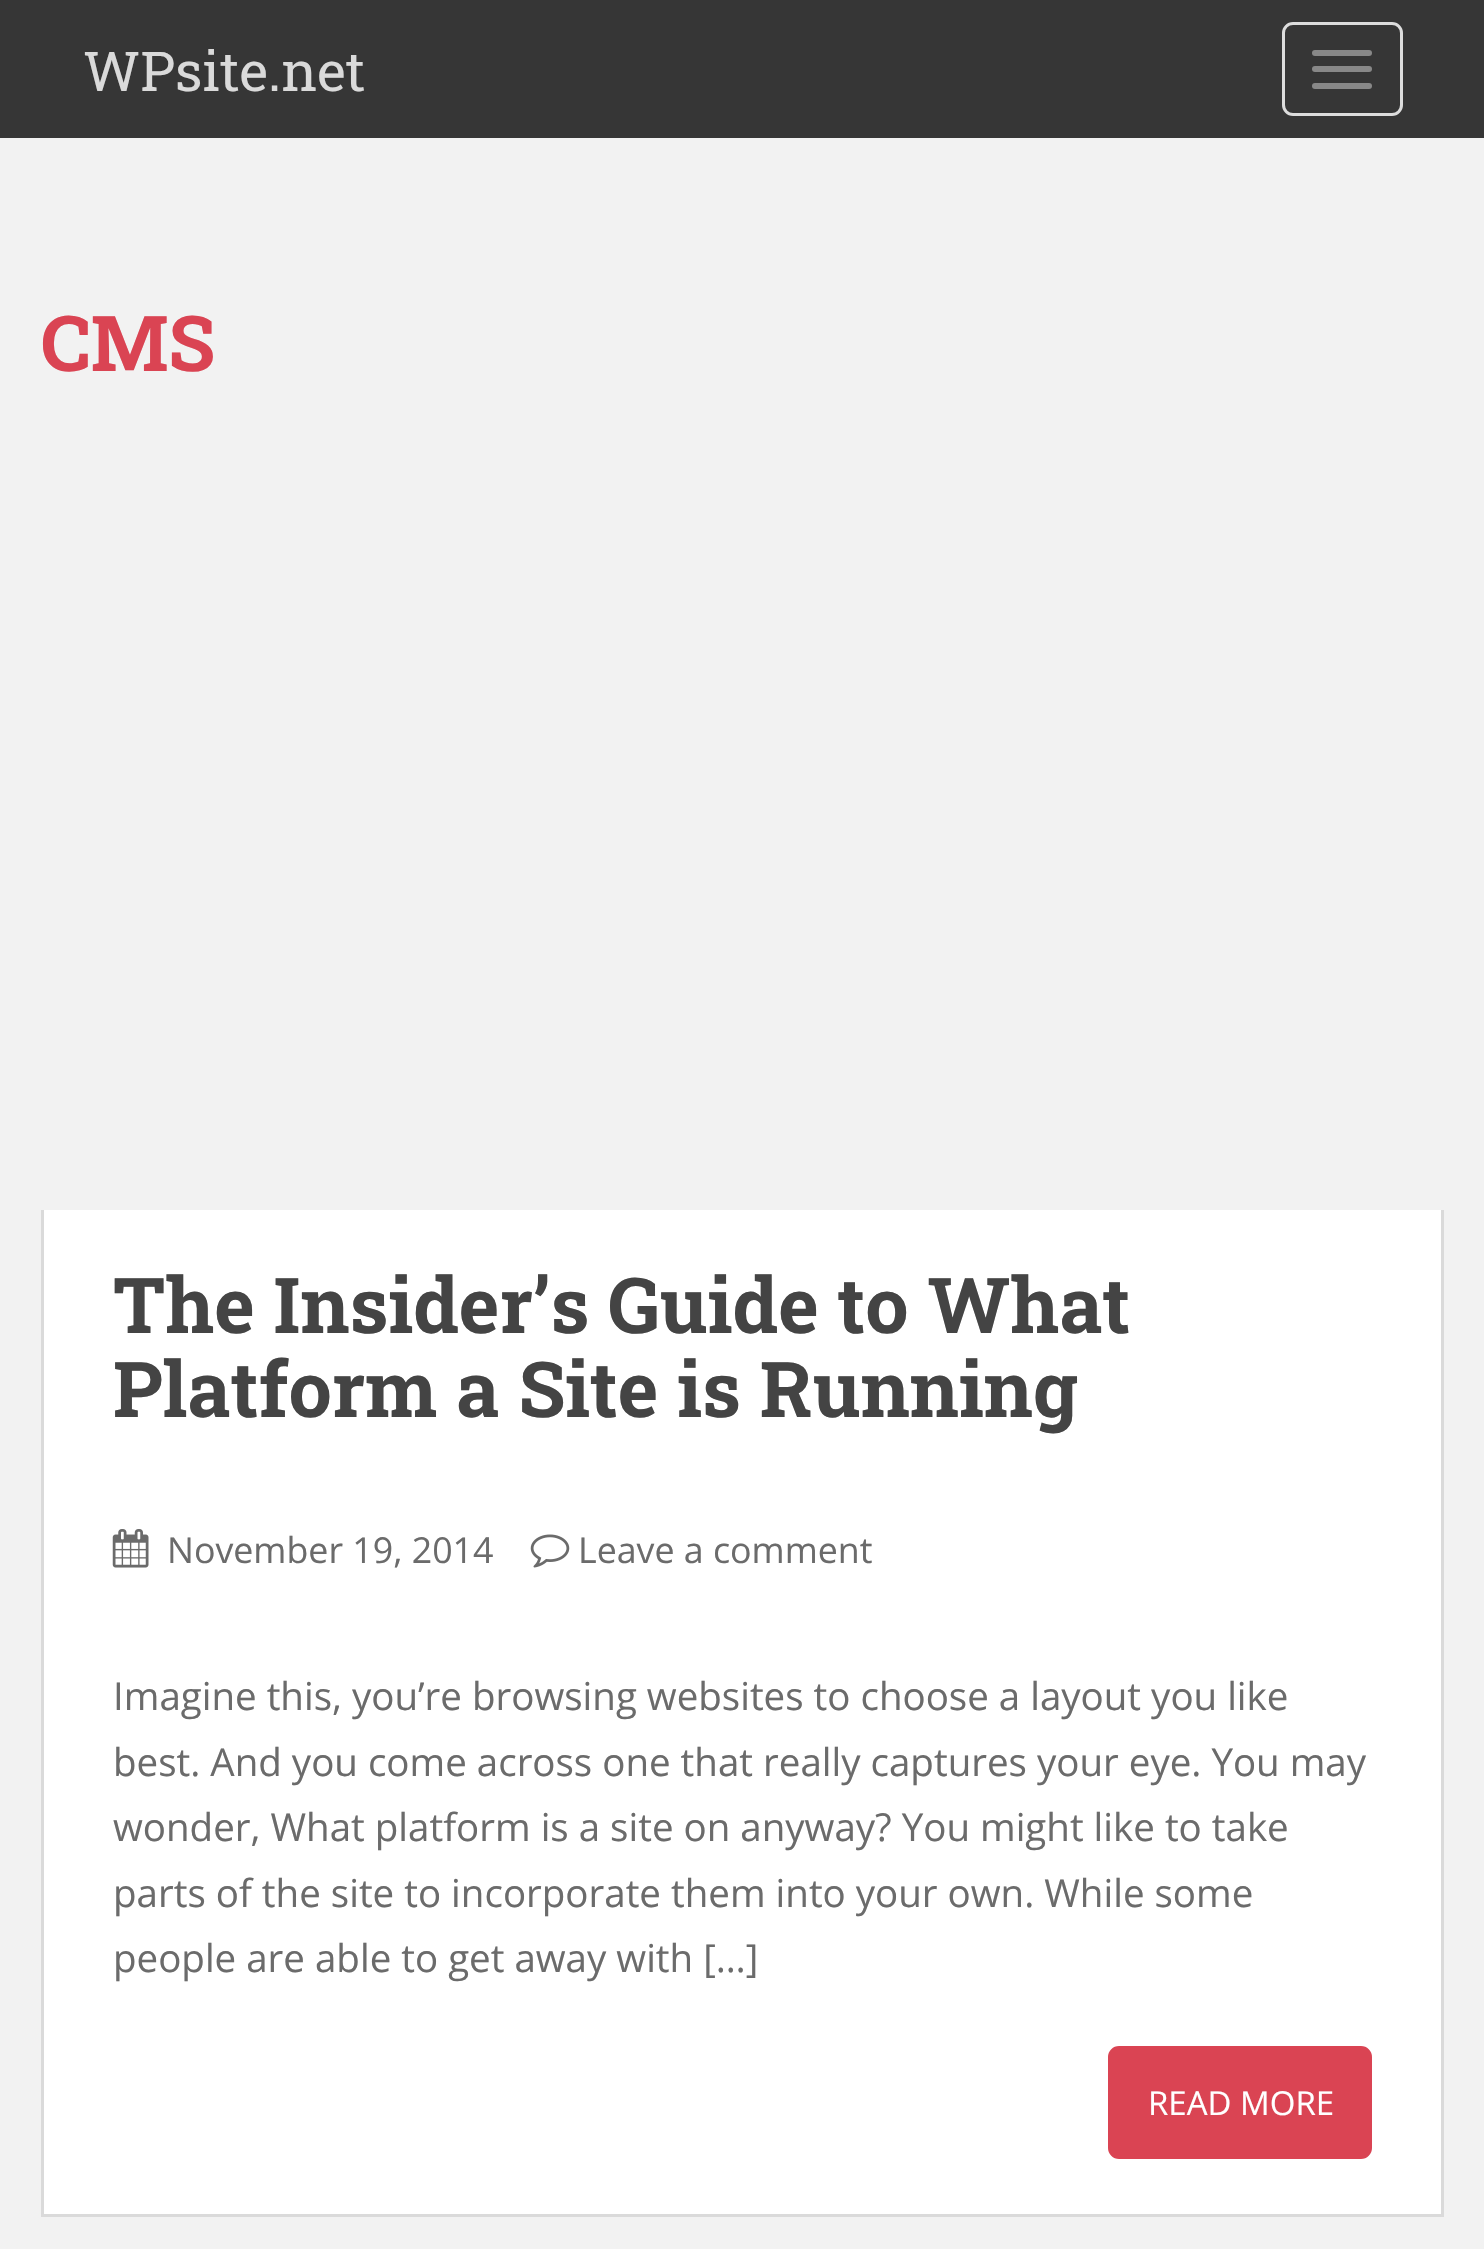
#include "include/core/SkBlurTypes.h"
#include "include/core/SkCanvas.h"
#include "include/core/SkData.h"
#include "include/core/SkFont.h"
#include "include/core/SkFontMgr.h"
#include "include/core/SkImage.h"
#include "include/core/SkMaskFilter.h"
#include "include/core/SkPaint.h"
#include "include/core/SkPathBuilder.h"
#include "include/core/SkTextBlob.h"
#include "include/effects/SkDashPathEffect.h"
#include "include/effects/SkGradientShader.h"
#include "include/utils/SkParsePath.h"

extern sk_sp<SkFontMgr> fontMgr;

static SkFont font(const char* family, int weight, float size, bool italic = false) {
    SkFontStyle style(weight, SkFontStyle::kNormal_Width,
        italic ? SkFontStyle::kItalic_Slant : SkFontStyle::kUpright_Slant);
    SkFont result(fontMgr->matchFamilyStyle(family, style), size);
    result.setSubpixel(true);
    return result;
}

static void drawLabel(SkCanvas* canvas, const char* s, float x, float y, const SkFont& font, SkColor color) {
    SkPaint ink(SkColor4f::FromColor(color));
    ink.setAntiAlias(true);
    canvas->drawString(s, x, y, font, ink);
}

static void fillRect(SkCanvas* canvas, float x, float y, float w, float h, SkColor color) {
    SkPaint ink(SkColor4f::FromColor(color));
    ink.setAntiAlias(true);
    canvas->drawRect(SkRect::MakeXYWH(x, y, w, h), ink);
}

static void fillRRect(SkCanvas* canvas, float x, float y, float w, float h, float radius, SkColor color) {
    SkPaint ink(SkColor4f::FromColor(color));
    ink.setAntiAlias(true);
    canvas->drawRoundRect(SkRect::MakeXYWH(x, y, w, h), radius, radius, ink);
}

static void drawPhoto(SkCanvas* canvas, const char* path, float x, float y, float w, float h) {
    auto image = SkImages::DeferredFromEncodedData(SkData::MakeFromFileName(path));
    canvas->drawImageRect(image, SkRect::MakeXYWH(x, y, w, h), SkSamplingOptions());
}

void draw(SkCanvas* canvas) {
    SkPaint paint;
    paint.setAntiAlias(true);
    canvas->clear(0xFFF2F2F2);
    fillRect(canvas, 0, 0, 1484, 138, 0xFF363636);
    SkFont font1 = font("Roboto Slab", 400, 55);
    drawLabel(canvas, "WPsite.net", 83, 91, font1, 0xFFDADADA);
    paint.setStroke(true);
    paint.setStrokeWidth(3);
    paint.setColor(0xFFDDDDDD);
    canvas->drawRoundRect(SkRect::MakeXYWH(1283.5f, 23.5f, 118, 91), 9.5f, 9.5f, paint);
    fillRRect(canvas, 1312, 50, 60, 6, 3, 0xFF888888);
    fillRRect(canvas, 1312, 66, 60, 6, 3, 0xFF888888);
    fillRRect(canvas, 1312, 83, 60, 6, 3, 0xFF888888);
    SkFont font2 = font("Roboto Slab", 700, 77);
    drawLabel(canvas, "CMS", 41, 371, font2, 0xFFDA4453);
    fillRect(canvas, 44, 1210, 1397, 1004, 0xFFFFFFFF);
    fillRect(canvas, 1441, 1210, 3, 1007, 0xFFDADADA);
    fillRect(canvas, 41, 2214, 1403, 3, 0xFFDADADA);
    fillRect(canvas, 41, 1210, 3, 1007, 0xFFDADADA);
    drawLabel(canvas, "The Insider’s Guide to What", 113, 1333, font2, 0xFF444444);
    drawLabel(canvas, "Platform a Site is Running", 113, 1417, font2, 0xFF444444);
    drawPhoto(canvas, "assets/img1.png", 112, 1529, 37, 39);
    SkFont font3 = font("Open Sans", 400, 35.75f);
    drawLabel(canvas, "November 19, 2014", 167, 1563, font3, 0xFF6B6B6B);
    drawPhoto(canvas, "assets/img2.png", 530, 1534, 40, 34);
    drawLabel(canvas, "Leave a comment", 578, 1563, font3, 0xFF6B6B6B);
    SkFont font4 = font("Open Sans", 400, 38.5f);
    drawLabel(canvas, "Imagine this, you’re browsing websites to choose a layout you like", 113, 1710, font4, 0xFF6B6B6B);
    drawLabel(canvas, "best. And you come across one that really captures your eye. You may", 113, 1776, font4, 0xFF6B6B6B);
    drawLabel(canvas, "wonder, What platform is a site on anyway? You might like to take", 113, 1841, font4, 0xFF6B6B6B);
    drawLabel(canvas, "parts of the site to incorporate them into your own. While some", 113, 1907, font4, 0xFF6B6B6B);
    drawLabel(canvas, "people are able to get away with […]", 113, 1972, font4, 0xFF6B6B6B);
    paint.setStroke(false);
    paint.setColor(0xFFDA4453);
    canvas->drawRoundRect(SkRect::MakeXYWH(1109.5f, 2047.5f, 261, 110), 9.5f, 9.5f, paint);
    paint.setStroke(true);
    canvas->drawRoundRect(SkRect::MakeXYWH(1109.5f, 2047.5f, 261, 110), 9.5f, 9.5f, paint);
    SkFont font5 = font("Open Sans", 400, 33);
    drawLabel(canvas, "READ MORE", 1148, 2115, font5, 0xFFFFFFFF);
}
